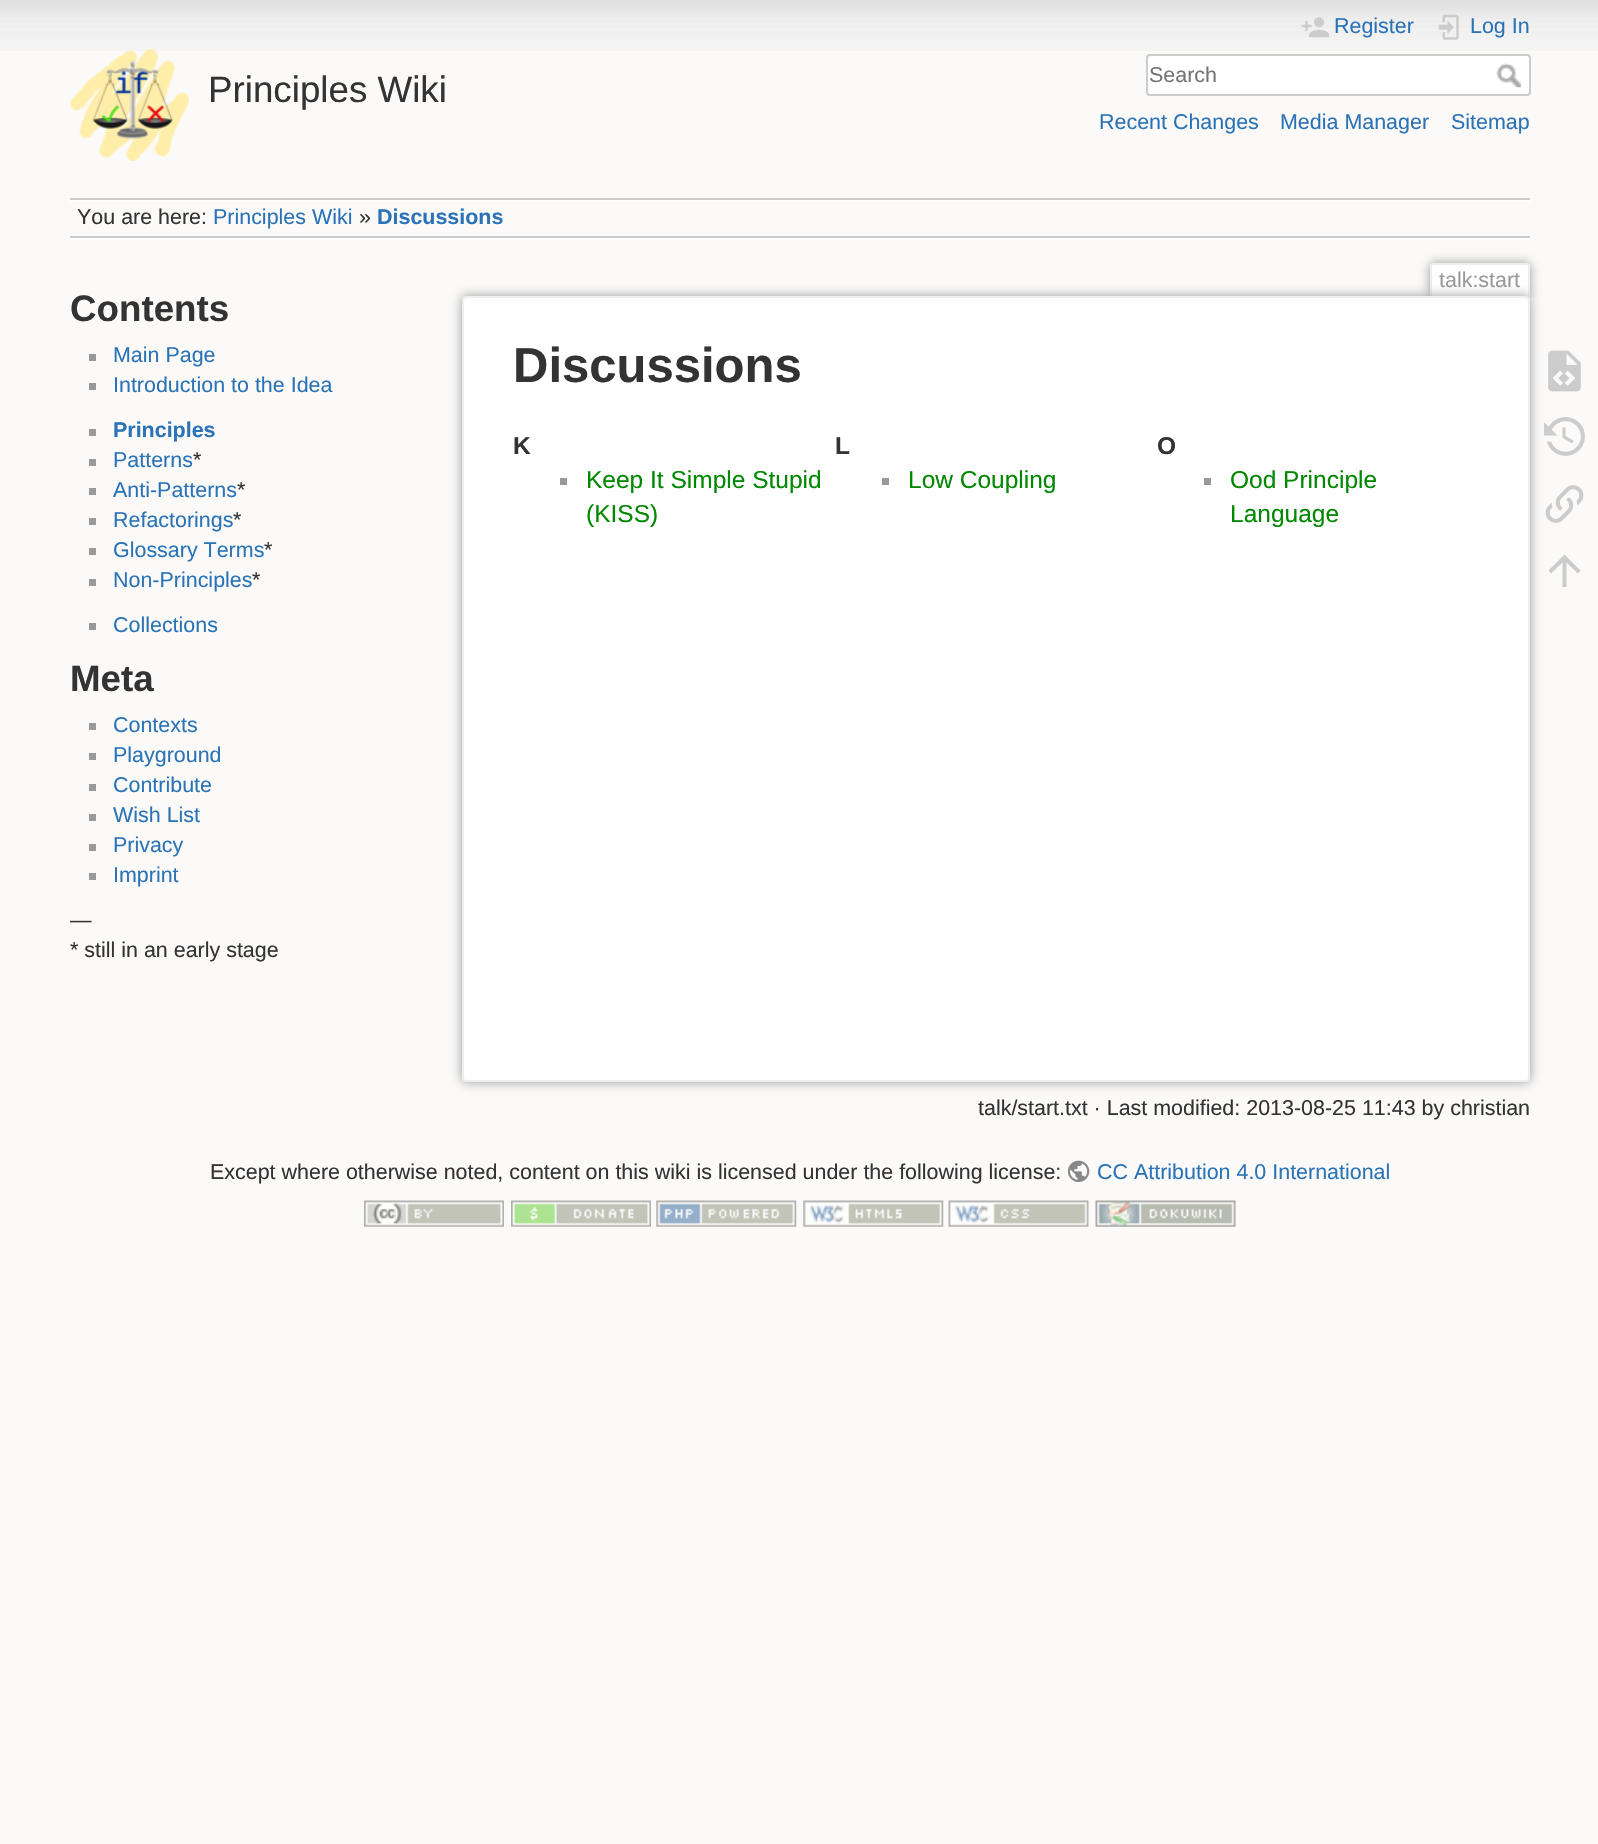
#include "include/core/SkBlurTypes.h"
#include "include/core/SkCanvas.h"
#include "include/core/SkData.h"
#include "include/core/SkFont.h"
#include "include/core/SkFontMgr.h"
#include "include/core/SkImage.h"
#include "include/core/SkMaskFilter.h"
#include "include/core/SkPaint.h"
#include "include/core/SkPathBuilder.h"
#include "include/core/SkTextBlob.h"
#include "include/effects/SkDashPathEffect.h"
#include "include/effects/SkGradientShader.h"
#include "include/utils/SkParsePath.h"

extern sk_sp<SkFontMgr> fontMgr;

static SkFont font(const char* family, int weight, float size, bool italic = false) {
    SkFontStyle style(weight, SkFontStyle::kNormal_Width,
        italic ? SkFontStyle::kItalic_Slant : SkFontStyle::kUpright_Slant);
    SkFont result(fontMgr->matchFamilyStyle(family, style), size);
    result.setSubpixel(true);
    return result;
}

static void drawLabel(SkCanvas* canvas, const char* s, float x, float y, const SkFont& font, SkColor color) {
    SkPaint ink(SkColor4f::FromColor(color));
    ink.setAntiAlias(true);
    canvas->drawString(s, x, y, font, ink);
}

static void fillRect(SkCanvas* canvas, float x, float y, float w, float h, SkColor color) {
    SkPaint ink(SkColor4f::FromColor(color));
    ink.setAntiAlias(true);
    canvas->drawRect(SkRect::MakeXYWH(x, y, w, h), ink);
}

static void drawPhoto(SkCanvas* canvas, const char* path, float x, float y, float w, float h) {
    auto image = SkImages::DeferredFromEncodedData(SkData::MakeFromFileName(path));
    canvas->drawImageRect(image, SkRect::MakeXYWH(x, y, w, h), SkSamplingOptions());
}

static SkPath parsePath(const char* data, bool evenOdd = false) {
    SkPath result = *SkParsePath::FromSVGString(data);
    if (evenOdd) result.setFillType(SkPathFillType::kEvenOdd);
    return result;
}

void draw(SkCanvas* canvas) {
    SkPaint paint;
    paint.setAntiAlias(true);
    canvas->clear(0xFFFBFAF9);
    drawPhoto(canvas, "assets/img1.png", 0, 0, 1598, 51);
    drawPhoto(canvas, "assets/img2.png", 70, 49, 119, 112);
    SkFont font1 = font("Liberation Sans", 400, 36.75f);
    drawLabel(canvas, "Principles Wiki", 208, 102, font1, 0xFF333333);
    drawPhoto(canvas, "assets/img3.png", 1301, 17, 28, 21);
    SkFont font2 = font("Liberation Sans", 400, 21.45f);
    drawLabel(canvas, "Register", 1334, 33, font2, 0xFF2B73B7);
    drawPhoto(canvas, "assets/img4.png", 1438, 14, 21, 26);
    drawLabel(canvas, "Log In", 1470, 33, font2, 0xFF2B73B7);
    paint.setColor(0xFFFFFFFF);
    canvas->drawRoundRect(SkRect::MakeXYWH(1147, 55, 383, 40), 3, 3, paint);
    paint.setStroke(true);
    paint.setStrokeWidth(2);
    paint.setColor(0xFFCCCCCC);
    canvas->drawRoundRect(SkRect::MakeXYWH(1147, 55, 383, 40), 3, 3, paint);
    drawLabel(canvas, "Search", 1149, 82, font2, 0xFF757575);
    drawPhoto(canvas, "assets/img5.png", 1496, 63, 25, 25);
    drawLabel(canvas, "Recent Changes", 1099, 129, font2, 0xFF2B73B7);
    drawLabel(canvas, "Media Manager", 1280, 129, font2, 0xFF2B73B7);
    drawLabel(canvas, "Sitemap", 1451, 129, font2, 0xFF2B73B7);
    fillRect(canvas, 70, 198, 1460, 2, 0xFFCCCCCC);
    fillRect(canvas, 70, 238, 1460, 2, 0xFFFFFFFF);
    fillRect(canvas, 70, 200, 1460, 2, 0xFFFFFFFF);
    fillRect(canvas, 70, 236, 1460, 2, 0xFFCCCCCC);
    drawLabel(canvas, "You are here:", 77, 224, font2, 0xFF333333);
    drawLabel(canvas, "Principles Wiki", 213, 224, font2, 0xFF2B73B7);
    drawLabel(canvas, "»", 359, 224, font2, 0xFF333333);
    SkFont font3 = font("Liberation Sans", 700, 21.45f);
    drawLabel(canvas, "Discussions", 377, 224, font3, 0xFF2B73B7);
    SkFont font4 = font("Liberation Sans", 700, 36.75f);
    drawLabel(canvas, "Contents", 70, 321, font4, 0xFF333333);
    fillRect(canvas, 89, 354, 7, 7, 0xFF999999);
    drawLabel(canvas, "Main Page", 113, 362, font2, 0xFF2B73B7);
    fillRect(canvas, 89, 383, 7, 7, 0xFF999999);
    drawLabel(canvas, "Introduction to the Idea", 113, 392, font2, 0xFF2B73B7);
    fillRect(canvas, 89, 429, 7, 7, 0xFF999999);
    drawLabel(canvas, "Principles", 113, 437, font3, 0xFF2B73B7);
    fillRect(canvas, 89, 459, 7, 7, 0xFF999999);
    drawLabel(canvas, "Patterns", 113, 467, font2, 0xFF2B73B7);
    drawLabel(canvas, "*", 193, 467, font2, 0xFF333333);
    fillRect(canvas, 89, 488, 7, 7, 0xFF999999);
    drawLabel(canvas, "Anti-Patterns", 113, 497, font2, 0xFF2B73B7);
    drawLabel(canvas, "*", 237, 497, font2, 0xFF333333);
    fillRect(canvas, 89, 518, 7, 7, 0xFF999999);
    drawLabel(canvas, "Refactorings", 113, 527, font2, 0xFF2B73B7);
    drawLabel(canvas, "*", 233, 527, font2, 0xFF333333);
    fillRect(canvas, 89, 548, 7, 7, 0xFF999999);
    drawLabel(canvas, "Glossary Terms", 113, 557, font2, 0xFF2B73B7);
    drawLabel(canvas, "*", 264, 557, font2, 0xFF333333);
    fillRect(canvas, 89, 579, 7, 7, 0xFF999999);
    drawLabel(canvas, "Non-Principles", 113, 587, font2, 0xFF2B73B7);
    drawLabel(canvas, "*", 252, 587, font2, 0xFF333333);
    fillRect(canvas, 89, 623, 7, 7, 0xFF999999);
    drawLabel(canvas, "Collections", 113, 632, font2, 0xFF2B73B7);
    drawLabel(canvas, "Meta", 70, 691, font4, 0xFF333333);
    fillRect(canvas, 89, 723, 7, 7, 0xFF999999);
    drawLabel(canvas, "Contexts", 113, 732, font2, 0xFF2B73B7);
    fillRect(canvas, 89, 753, 7, 7, 0xFF999999);
    drawLabel(canvas, "Playground", 113, 762, font2, 0xFF2B73B7);
    fillRect(canvas, 89, 784, 7, 7, 0xFF999999);
    drawLabel(canvas, "Contribute", 113, 792, font2, 0xFF2B73B7);
    fillRect(canvas, 89, 814, 7, 7, 0xFF999999);
    drawLabel(canvas, "Wish List", 113, 822, font2, 0xFF2B73B7);
    fillRect(canvas, 89, 844, 7, 7, 0xFF999999);
    drawLabel(canvas, "Privacy", 113, 852, font2, 0xFF2B73B7);
    fillRect(canvas, 89, 873, 7, 7, 0xFF999999);
    drawLabel(canvas, "Imprint", 113, 882, font2, 0xFF2B73B7);
    drawLabel(canvas, "—", 70, 927, font2, 0xFF333333);
    drawLabel(canvas, "* still in an early stage", 70, 957, font2, 0xFF333333);
    canvas->save();
    canvas->clipRect(SkRect::MakeXYWH(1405, 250, 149, 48));
    paint.setStroke(false);
    paint.setColor(0xFF999999);
    paint.setMaskFilter(SkMaskFilter::MakeBlur(kNormal_SkBlurStyle, 5.5f));
    canvas->drawRoundRect(SkRect::MakeXYWH(1430, 263, 100, 35), 4, 4, paint);
    paint.setMaskFilter(nullptr);
    canvas->restore();
    paint.setColor(0xFFFFFFFF);
    canvas->drawPath(parsePath("M1434 264H1526C1527 264 1528 265 1528 266V298H1432V266C1432 265 1433 264 1434 264Z"), paint);
    fillRect(canvas, 1432, 263, 96, 2, 0xFFEEEEEE);
    fillRect(canvas, 1528, 264, 2, 34, 0xFFEEEEEE);
    fillRect(canvas, 1430, 264, 2, 34, 0xFFEEEEEE);
    drawLabel(canvas, "talk:start", 1439, 287, font2, 0xFF999999);
    paint.setColor(0xFF999999);
    paint.setMaskFilter(SkMaskFilter::MakeBlur(kNormal_SkBlurStyle, 6));
    canvas->drawRoundRect(SkRect::MakeXYWH(462, 296, 1068, 786), 4, 4, paint);
    paint.setMaskFilter(nullptr);
    paint.setColor(0xFFFFFFFF);
    canvas->drawRoundRect(SkRect::MakeXYWH(463, 297, 1066, 784), 3, 3, paint);
    paint.setStroke(true);
    paint.setColor(0xFFEEEEEE);
    canvas->drawRoundRect(SkRect::MakeXYWH(463, 297, 1066, 784), 3, 3, paint);
    SkFont font5 = font("Liberation Sans", 700, 49);
    drawLabel(canvas, "Discussions", 513, 382, font5, 0xFF333333);
    SkFont font6 = font("Liberation Sans", 700, 24.5f);
    drawLabel(canvas, "K", 513, 454, font6, 0xFF333333);
    fillRect(canvas, 560, 478, 7, 7, 0xFF999999);
    SkFont font7 = font("Liberation Sans", 400, 24.5f);
    drawLabel(canvas, "Keep It Simple Stupid", 586, 488, font7, 0xFF008800);
    drawLabel(canvas, "(KISS)", 586, 522, font7, 0xFF008800);
    drawLabel(canvas, "L", 835, 454, font6, 0xFF333333);
    fillRect(canvas, 882, 478, 7, 7, 0xFF999999);
    drawLabel(canvas, "Low Coupling", 908, 488, font7, 0xFF008800);
    drawLabel(canvas, "O", 1157, 454, font6, 0xFF333333);
    fillRect(canvas, 1204, 478, 7, 7, 0xFF999999);
    drawLabel(canvas, "Ood Principle", 1230, 488, font7, 0xFF008800);
    drawLabel(canvas, "Language", 1230, 522, font7, 0xFF008800);
    drawLabel(canvas, "talk/start.txt · Last modified: 2013-08-25 11:43 by christian", 978, 1115, font2, 0xFF333333);
    drawPhoto(canvas, "assets/img6.png", 1548, 350, 33, 42);
    drawPhoto(canvas, "assets/img7.png", 1544, 417, 41, 39);
    drawPhoto(canvas, "assets/img8.png", 1545, 485, 39, 38);
    paint.setStroke(false);
    paint.setColor(0xFFCCCCCC);
    canvas->drawPath(parsePath("M1566.5 587H1562.5V562.5L1551 573.5L1548.5 570.5L1564.5 554.5L1580.5 570.5L1578 573.5L1566.5 562.5Z"), paint);
    drawLabel(canvas, "Except where otherwise noted, content on this wiki is licensed under the following license:", 210, 1179, font2, 0xFF333333);
    drawPhoto(canvas, "assets/img9.png", 1067, 1160, 23, 23);
    drawLabel(canvas, "CC Attribution 4.0 International", 1097, 1179, font2, 0xFF2B73B7);
    drawPhoto(canvas, "assets/img10.png", 364, 1200, 140, 27);
    drawPhoto(canvas, "assets/img11.png", 511, 1200, 140, 27);
    drawPhoto(canvas, "assets/img12.png", 656, 1200, 141, 27);
    drawPhoto(canvas, "assets/img13.png", 803, 1200, 141, 27);
    drawPhoto(canvas, "assets/img14.png", 948, 1200, 141, 27);
    drawPhoto(canvas, "assets/img15.png", 1095, 1200, 141, 27);
}
